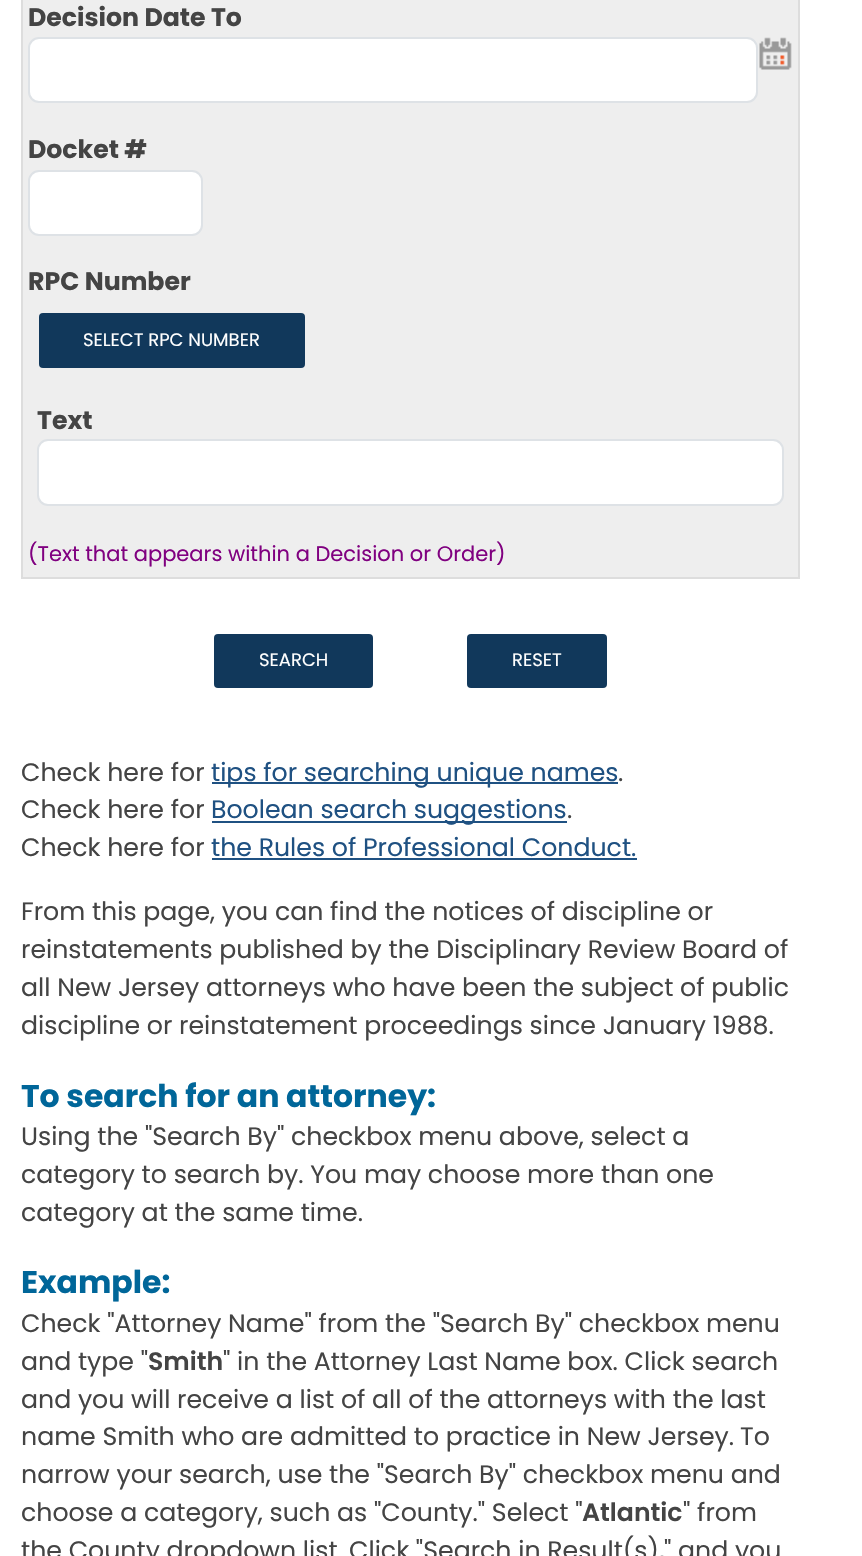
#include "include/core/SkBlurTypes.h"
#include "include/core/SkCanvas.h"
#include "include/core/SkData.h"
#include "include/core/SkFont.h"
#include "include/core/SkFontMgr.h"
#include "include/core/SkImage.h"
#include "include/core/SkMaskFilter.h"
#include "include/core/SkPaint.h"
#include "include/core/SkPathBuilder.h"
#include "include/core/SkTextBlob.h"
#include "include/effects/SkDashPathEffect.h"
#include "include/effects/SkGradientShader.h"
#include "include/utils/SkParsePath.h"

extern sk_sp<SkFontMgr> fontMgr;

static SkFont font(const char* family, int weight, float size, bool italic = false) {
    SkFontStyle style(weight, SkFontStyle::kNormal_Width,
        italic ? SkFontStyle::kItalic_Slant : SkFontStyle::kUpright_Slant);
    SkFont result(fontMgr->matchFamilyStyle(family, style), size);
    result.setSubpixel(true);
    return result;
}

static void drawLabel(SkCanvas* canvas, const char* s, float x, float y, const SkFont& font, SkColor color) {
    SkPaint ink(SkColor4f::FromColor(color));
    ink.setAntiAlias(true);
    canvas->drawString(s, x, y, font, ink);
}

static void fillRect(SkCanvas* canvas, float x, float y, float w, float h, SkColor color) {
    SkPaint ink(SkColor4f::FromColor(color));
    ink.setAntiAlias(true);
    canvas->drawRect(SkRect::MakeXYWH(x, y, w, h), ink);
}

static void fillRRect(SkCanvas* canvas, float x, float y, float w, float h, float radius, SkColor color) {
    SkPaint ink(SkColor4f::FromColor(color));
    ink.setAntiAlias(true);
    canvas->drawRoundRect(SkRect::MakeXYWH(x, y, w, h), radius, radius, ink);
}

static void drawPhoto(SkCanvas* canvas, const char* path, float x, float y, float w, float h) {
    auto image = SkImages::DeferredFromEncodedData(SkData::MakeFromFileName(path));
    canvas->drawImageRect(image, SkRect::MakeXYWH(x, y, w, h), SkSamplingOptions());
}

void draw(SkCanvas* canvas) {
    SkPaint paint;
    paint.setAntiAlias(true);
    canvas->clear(0xFFFFFFFF);
    paint.setColor(0xFFEEEEEE);
    canvas->drawRect(SkRect::MakeXYWH(22, -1, 777, 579), paint);
    paint.setStroke(true);
    paint.setStrokeWidth(2);
    paint.setColor(0xFFDDDDDD);
    canvas->drawRect(SkRect::MakeXYWH(22, -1, 777, 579), paint);
    SkFont font1 = font("Poppins", 700, 25.2f);
    drawLabel(canvas, "Decision Date To", 28, 26, font1, 0xFF444444);
    paint.setStroke(false);
    paint.setColor(0xFFFFFFFF);
    canvas->drawRoundRect(SkRect::MakeXYWH(29, 38, 728, 64), 10, 10, paint);
    paint.setStroke(true);
    paint.setColor(0xFFDEE2E6);
    canvas->drawRoundRect(SkRect::MakeXYWH(29, 38, 728, 64), 10, 10, paint);
    drawPhoto(canvas, "assets/img1.png", 759, 37, 33, 33);
    drawLabel(canvas, "Docket #", 28, 158, font1, 0xFF444444);
    paint.setStroke(false);
    paint.setColor(0xFFFFFFFF);
    canvas->drawRoundRect(SkRect::MakeXYWH(29, 171, 173, 64), 10, 10, paint);
    paint.setStroke(true);
    paint.setColor(0xFFDEE2E6);
    canvas->drawRoundRect(SkRect::MakeXYWH(29, 171, 173, 64), 10, 10, paint);
    drawLabel(canvas, "RPC Number", 28, 290, font1, 0xFF444444);
    fillRRect(canvas, 39, 313, 266, 55, 4, 0xFF11385B);
    SkFont font2 = font("Poppins", 400, 18);
    drawLabel(canvas, "SELECT RPC NUMBER", 83, 346, font2, 0xFFFFFFFF);
    drawLabel(canvas, "Text", 37, 429, font1, 0xFF444444);
    paint.setStroke(false);
    paint.setColor(0xFFFFFFFF);
    canvas->drawRoundRect(SkRect::MakeXYWH(38, 440, 745, 65), 10, 10, paint);
    paint.setStroke(true);
    paint.setColor(0xFFDEE2E6);
    canvas->drawRoundRect(SkRect::MakeXYWH(38, 440, 745, 65), 10, 10, paint);
    SkFont font3 = font("Poppins", 400, 21);
    drawLabel(canvas, "(Text that appears within a Decision or Order)", 28, 561, font3, 0xFF800080);
    fillRRect(canvas, 214, 634, 159, 54, 4, 0xFF11385B);
    drawLabel(canvas, "SEARCH", 259, 666, font2, 0xFFFFFFFF);
    fillRRect(canvas, 467, 634, 140, 54, 4, 0xFF11385B);
    drawLabel(canvas, "RESET", 512, 666, font2, 0xFFFFFFFF);
    SkFont font4 = font("Poppins", 400, 25.2f);
    drawLabel(canvas, "Check here for", 21, 781, font4, 0xFF444444);
    fillRect(canvas, 212, 782, 406, 2, 0xFF1F5182);
    drawLabel(canvas, "tips for searching unique names", 211, 781, font4, 0xFF1F5182);
    drawLabel(canvas, ".", 618, 781, font4, 0xFF444444);
    drawLabel(canvas, "Check here for", 21, 818, font4, 0xFF444444);
    fillRect(canvas, 212, 821, 355, 2, 0xFF1F5182);
    drawLabel(canvas, "Boolean search suggestions", 211, 818, font4, 0xFF1F5182);
    drawLabel(canvas, ".", 567, 818, font4, 0xFF444444);
    drawLabel(canvas, "Check here for", 21, 856, font4, 0xFF444444);
    drawLabel(canvas, "the Rules of Professional Conduct.", 211, 856, font4, 0xFF1F5182);
    fillRect(canvas, 212, 858, 425, 2, 0xFF1F5182);
    drawLabel(canvas, "From this page, you can find the notices of discipline or", 21, 920, font4, 0xFF444444);
    drawLabel(canvas, "reinstatements published by the Disciplinary Review Board of", 21, 958, font4, 0xFF444444);
    drawLabel(canvas, "all New Jersey attorneys who have been the subject", 21, 996, font4, 0xFF444444);
    drawLabel(canvas, "of public", 680, 996, font4, 0xFF444444);
    drawLabel(canvas, "discipline or reinstatement proceedings since January 1988.", 21, 1034, font4, 0xFF444444);
    SkFont font5 = font("Poppins", 700, 31.5f);
    drawLabel(canvas, "To search for an attorney:", 21, 1107, font5, 0xFF006699);
    drawLabel(canvas, "Using the \"Search By\" checkbox menu above, select a", 21, 1145, font4, 0xFF444444);
    drawLabel(canvas, "category to search by. You may choose more than one", 21, 1183, font4, 0xFF444444);
    drawLabel(canvas, "category at the same time.", 21, 1221, font4, 0xFF444444);
    drawLabel(canvas, "Example:", 21, 1293, font5, 0xFF006699);
    drawLabel(canvas, "Check \"Attorney Name\" from the \"Search By\" checkbox menu", 21, 1332, font4, 0xFF444444);
    drawLabel(canvas, "and type \"", 21, 1370, font4, 0xFF444444);
    SkFont font6 = font("Poppins", 600, 25.2f);
    drawLabel(canvas, "Smith", 148, 1370, font6, 0xFF444444);
    drawLabel(canvas, "\" in the Attorney Last Name box. Click search", 223, 1370, font4, 0xFF444444);
    drawLabel(canvas, "and you will receive a list of all of the attorneys with the last", 21, 1408, font4, 0xFF444444);
    drawLabel(canvas, "name Smith who are admitted to practice in New Jersey.", 21, 1445, font4, 0xFF444444);
    drawLabel(canvas, "To", 740, 1445, font4, 0xFF444444);
    drawLabel(canvas, "narrow your search, use the \"Search By\" checkbox menu and", 21, 1483, font4, 0xFF444444);
    drawLabel(canvas, "choose a category, such as \"County.\" Select \"", 21, 1521, font4, 0xFF444444);
    drawLabel(canvas, "Atlantic", 582, 1521, font6, 0xFF444444);
    drawLabel(canvas, "\" from", 683, 1521, font4, 0xFF444444);
    drawLabel(canvas, "the County dropdown list", 21, 1559, font4, 0xFF444444);
    drawLabel(canvas, "Click \"Search in Result(s),\" and you", 349, 1559, font4, 0xFF444444);
}
